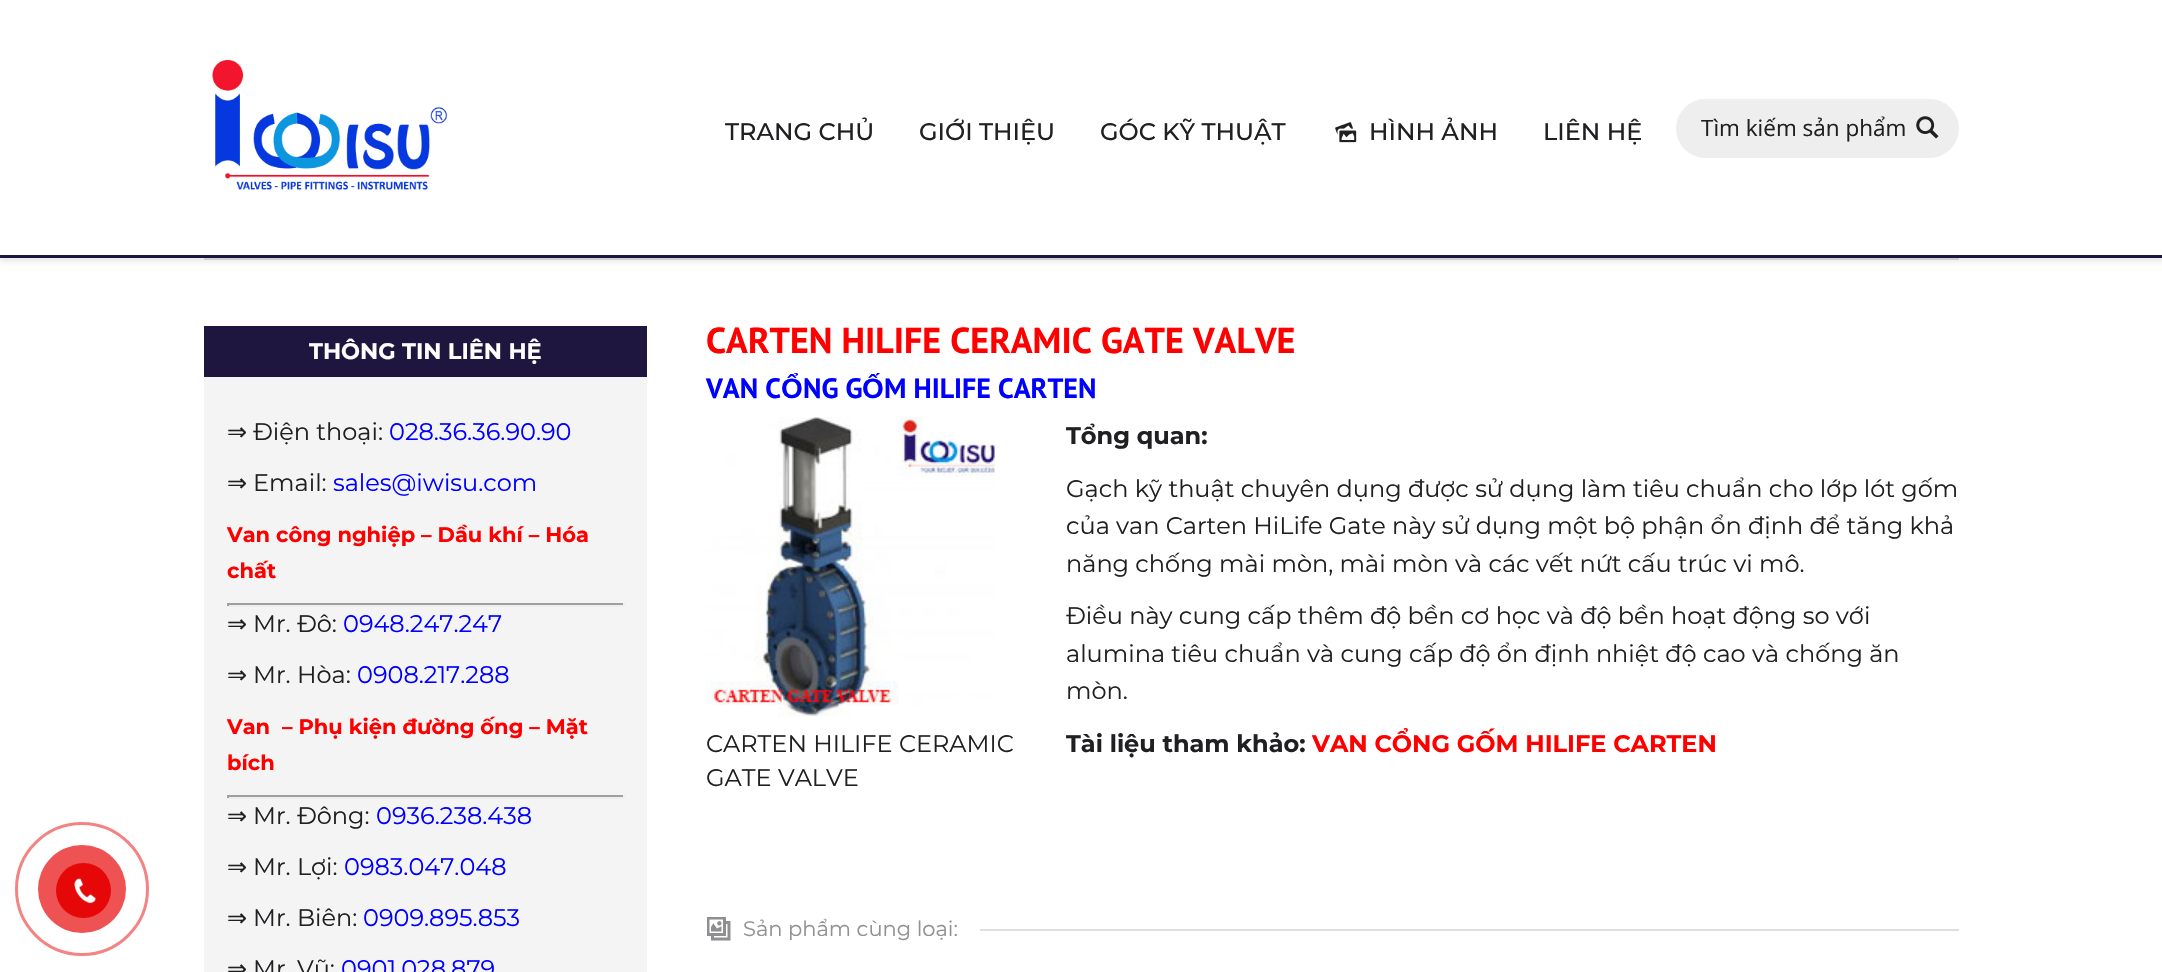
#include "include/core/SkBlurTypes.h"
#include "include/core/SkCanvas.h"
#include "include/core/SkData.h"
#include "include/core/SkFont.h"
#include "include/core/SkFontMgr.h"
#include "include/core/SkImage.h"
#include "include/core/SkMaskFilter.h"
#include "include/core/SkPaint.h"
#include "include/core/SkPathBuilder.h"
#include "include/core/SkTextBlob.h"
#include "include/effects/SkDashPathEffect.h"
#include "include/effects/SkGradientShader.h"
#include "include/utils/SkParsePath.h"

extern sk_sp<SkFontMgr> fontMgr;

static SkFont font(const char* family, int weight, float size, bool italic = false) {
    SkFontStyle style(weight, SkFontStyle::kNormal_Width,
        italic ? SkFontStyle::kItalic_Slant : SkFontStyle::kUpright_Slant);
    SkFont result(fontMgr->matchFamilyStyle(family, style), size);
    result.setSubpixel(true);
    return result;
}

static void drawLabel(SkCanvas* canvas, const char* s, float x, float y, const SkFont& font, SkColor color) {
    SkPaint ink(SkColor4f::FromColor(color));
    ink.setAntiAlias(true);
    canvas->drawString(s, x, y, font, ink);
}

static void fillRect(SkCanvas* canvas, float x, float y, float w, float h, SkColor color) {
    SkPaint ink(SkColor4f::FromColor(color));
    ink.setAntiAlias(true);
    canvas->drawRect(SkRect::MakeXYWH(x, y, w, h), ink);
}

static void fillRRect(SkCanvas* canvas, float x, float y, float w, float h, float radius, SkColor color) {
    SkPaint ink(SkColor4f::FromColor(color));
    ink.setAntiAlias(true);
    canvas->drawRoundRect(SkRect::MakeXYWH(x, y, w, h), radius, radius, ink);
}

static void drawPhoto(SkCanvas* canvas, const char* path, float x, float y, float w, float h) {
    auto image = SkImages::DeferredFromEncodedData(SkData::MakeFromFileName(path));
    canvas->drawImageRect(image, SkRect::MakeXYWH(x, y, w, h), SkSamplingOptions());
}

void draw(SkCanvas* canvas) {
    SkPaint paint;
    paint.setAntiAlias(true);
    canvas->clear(0xFFFFFFFF);
    paint.setStroke(true);
    paint.setStrokeWidth(3);
    paint.setColor(0xFFF38484);
    canvas->drawCircle(82, 889, 65.5f, paint);
    paint.setStroke(false);
    paint.setColor(0xFFEE5252);
    canvas->drawCircle(82, 889, 44, paint);
    paint.setColor(0xFFE60808);
    canvas->drawCircle(83.5f, 890.5f, 27.5f, paint);
    drawPhoto(canvas, "assets/img1.png", 74, 878, 22, 26);
    fillRect(canvas, 204, 258, 1755, 2, 0xFFDEDEDE);
    paint.setColor(0x1A000000);
    paint.setMaskFilter(SkMaskFilter::MakeBlur(kNormal_SkBlurStyle, 3));
    canvas->drawRect(SkRect::MakeXYWH(0, 0, 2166, 261), paint);
    paint.setMaskFilter(nullptr);
    fillRect(canvas, 0, 0, 2162, 255, 0xFFFFFFFF);
    fillRect(canvas, 0, 255, 2162, 3, 0xFF1F1640);
    drawPhoto(canvas, "assets/img2.png", 212, 59, 236, 131);
    SkFont font1 = font("Montserrat", 500, 24);
    drawLabel(canvas, "TRANG CHỦ", 725, 140, font1, 0xFF202023);
    drawLabel(canvas, "GIỚI THIỆU", 919, 140, font1, 0xFF202023);
    drawLabel(canvas, "GÓC KỸ THUẬT", 1100, 140, font1, 0xFF202023);
    drawPhoto(canvas, "assets/img3.png", 1335, 122, 22, 21);
    drawLabel(canvas, "HÌNH ẢNH", 1369, 140, font1, 0xFF202023);
    drawLabel(canvas, "LIÊN HỆ", 1543, 140, font1, 0xFF202023);
    fillRRect(canvas, 1676, 99, 283, 59, 29.5f, 0xFFEEEEEE);
    SkFont font2 = font("Open Sans", 400, 22.5f);
    drawLabel(canvas, "Tìm kiếm sản phẩm", 1701, 136, font2, 0xFF202023);
    drawPhoto(canvas, "assets/img4.png", 1916, 116, 23, 23);
    fillRect(canvas, 204, 377, 443, 595, 0xFFF4F4F4);
    fillRect(canvas, 204, 326, 443, 51, 0xFF1F1640);
    SkFont font3 = font("Montserrat", 700, 22.5f);
    drawLabel(canvas, "THÔNG TIN LIÊN HỆ", 309, 359, font3, 0xFFFFFFFF);
    SkFont font4 = font("DejaVu Sans", 400, 24);
    drawLabel(canvas, "⇒", 227, 440, font4, 0xFF202023);
    SkFont font5 = font("Montserrat", 400, 24);
    drawLabel(canvas, "Điện thoại:", 253, 440, font5, 0xFF202023);
    drawLabel(canvas, "028.36.36.90.90", 389, 440, font5, 0xFF0000FF);
    drawLabel(canvas, "⇒", 227, 491, font4, 0xFF202023);
    drawLabel(canvas, "Email:", 253, 491, font5, 0xFF202023);
    drawLabel(canvas, "sales@iwisu.com", 333, 491, font5, 0xFF0000FF);
    SkFont font6 = font("Montserrat", 700, 21);
    drawLabel(canvas, "Van công nghiệp – Dầu khí – Hóa", 227, 542, font6, 0xFFFF0000);
    drawLabel(canvas, "chất", 227, 578, font6, 0xFFFF0000);
    fillRect(canvas, 227, 603, 397, 2, 0xFF9F9F9F);
    fillRect(canvas, 623, 603, 2, 3, 0xFFEEEEEE);
    fillRect(canvas, 227, 605, 397, 2, 0xFFEEEEEE);
    fillRect(canvas, 227, 603, 2, 3, 0xFF9F9F9F);
    drawLabel(canvas, "⇒", 227, 632, font4, 0xFF202023);
    drawLabel(canvas, "Mr. Đô:", 253, 632, font5, 0xFF202023);
    drawLabel(canvas, "0948.247.247", 343, 632, font5, 0xFF0000FF);
    drawLabel(canvas, "⇒", 227, 683, font4, 0xFF202023);
    drawLabel(canvas, "Mr. Hòa:", 253, 683, font5, 0xFF202023);
    drawLabel(canvas, "0908.217.288", 357, 683, font5, 0xFF0000FF);
    drawLabel(canvas, "Van  – Phụ kiện đường ống – Mặt", 227, 734, font6, 0xFFFF0000);
    drawLabel(canvas, "bích", 227, 770, font6, 0xFFFF0000);
    fillRect(canvas, 227, 795, 397, 2, 0xFF9F9F9F);
    fillRect(canvas, 623, 795, 2, 3, 0xFFEEEEEE);
    fillRect(canvas, 227, 797, 397, 2, 0xFFEEEEEE);
    fillRect(canvas, 227, 795, 2, 3, 0xFF9F9F9F);
    drawLabel(canvas, "⇒", 227, 824, font4, 0xFF202023);
    drawLabel(canvas, "Mr. Đông:", 253, 824, font5, 0xFF202023);
    drawLabel(canvas, "0936.238.438", 376, 824, font5, 0xFF0000FF);
    drawLabel(canvas, "⇒", 227, 875, font4, 0xFF202023);
    drawLabel(canvas, "Mr. Lợi:", 253, 875, font5, 0xFF202023);
    drawLabel(canvas, "0983.047.048", 344, 875, font5, 0xFF0000FF);
    drawLabel(canvas, "⇒", 227, 926, font4, 0xFF202023);
    drawLabel(canvas, "Mr. Biên:", 253, 926, font5, 0xFF202023);
    drawLabel(canvas, "0909.895.853", 363, 926, font5, 0xFF0000FF);
    drawLabel(canvas, "⇒", 227, 977, font4, 0xFF202023);
    drawLabel(canvas, "Mr. Vũ:", 253, 977, font5, 0xFF202023);
    drawLabel(canvas, "0901.028.879", 341, 977, font5, 0xFF0000FF);
    SkFont font7 = font("PT Sans", 700, 36);
    drawLabel(canvas, "CARTEN HILIFE CERAMIC GATE VALVE", 706, 353, font7, 0xFFFF0000);
    SkFont font8 = font("PT Sans", 700, 28);
    drawLabel(canvas, "VAN C", 706, 398, font8, 0xFF0000FF);
    SkFont font9 = font("Liberation Sans", 700, 28);
    drawLabel(canvas, "Ổ", 781, 398, font9, 0xFF0000FF);
    drawLabel(canvas, "NG G", 803, 398, font8, 0xFF0000FF);
    drawLabel(canvas, "Ố", 862, 398, font9, 0xFF0000FF);
    drawLabel(canvas, "M HILIFE CARTEN", 884, 398, font8, 0xFF0000FF);
    SkFont font10 = font("Montserrat", 700, 24);
    drawLabel(canvas, "Tổng quan:", 1066, 444, font10, 0xFF202023);
    drawLabel(canvas, "Gạch kỹ thuật chuyên dụng được sử dụng làm tiêu chuẩn cho lớp lót gốm", 1066, 497, font5, 0xFF202023);
    drawLabel(canvas, "của van Carten HiLife Gate này sử dụng một bộ phận ổn định để tăng khả", 1066, 534, font5, 0xFF202023);
    drawLabel(canvas, "năng chống mài mòn, mài mòn và các vết nứt cấu trúc vi mô.", 1066, 572, font5, 0xFF202023);
    drawLabel(canvas, "Điều này cung cấp thêm độ bền cơ học và độ bền hoạt động so với", 1066, 624, font5, 0xFF202023);
    drawLabel(canvas, "alumina tiêu chuẩn và cung cấp độ ổn định nhiệt độ cao và chống ăn", 1066, 662, font5, 0xFF202023);
    drawLabel(canvas, "mòn.", 1066, 699, font5, 0xFF202023);
    drawPhoto(canvas, "assets/img5.png", 706, 417, 289, 300);
    drawLabel(canvas, "CARTEN HILIFE CERAMIC", 706, 752, font5, 0xFF202023);
    drawLabel(canvas, "GATE VALVE", 706, 786, font5, 0xFF202023);
    drawLabel(canvas, "Tài liệu tham khảo:", 1066, 752, font10, 0xFF202023);
    drawLabel(canvas, "VAN CỔNG GỐM HILIFE CARTEN", 1312, 752, font10, 0xFFFF0000);
    drawPhoto(canvas, "assets/img6.png", 707, 917, 24, 24);
    SkFont font11 = font("Montserrat", 400, 21);
    drawLabel(canvas, "Sản phẩm cùng loại:", 743, 936, font11, 0xFF909091);
    fillRect(canvas, 980, 929, 979, 2, 0xFFDEDEDE);
}
